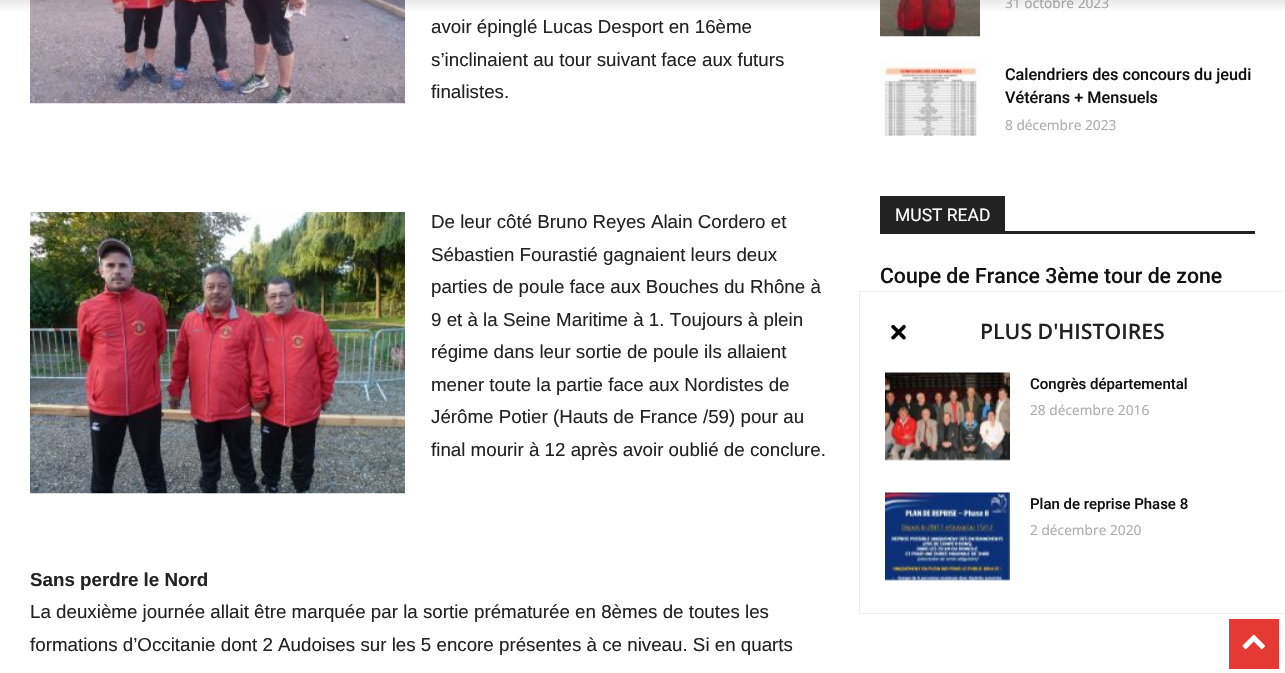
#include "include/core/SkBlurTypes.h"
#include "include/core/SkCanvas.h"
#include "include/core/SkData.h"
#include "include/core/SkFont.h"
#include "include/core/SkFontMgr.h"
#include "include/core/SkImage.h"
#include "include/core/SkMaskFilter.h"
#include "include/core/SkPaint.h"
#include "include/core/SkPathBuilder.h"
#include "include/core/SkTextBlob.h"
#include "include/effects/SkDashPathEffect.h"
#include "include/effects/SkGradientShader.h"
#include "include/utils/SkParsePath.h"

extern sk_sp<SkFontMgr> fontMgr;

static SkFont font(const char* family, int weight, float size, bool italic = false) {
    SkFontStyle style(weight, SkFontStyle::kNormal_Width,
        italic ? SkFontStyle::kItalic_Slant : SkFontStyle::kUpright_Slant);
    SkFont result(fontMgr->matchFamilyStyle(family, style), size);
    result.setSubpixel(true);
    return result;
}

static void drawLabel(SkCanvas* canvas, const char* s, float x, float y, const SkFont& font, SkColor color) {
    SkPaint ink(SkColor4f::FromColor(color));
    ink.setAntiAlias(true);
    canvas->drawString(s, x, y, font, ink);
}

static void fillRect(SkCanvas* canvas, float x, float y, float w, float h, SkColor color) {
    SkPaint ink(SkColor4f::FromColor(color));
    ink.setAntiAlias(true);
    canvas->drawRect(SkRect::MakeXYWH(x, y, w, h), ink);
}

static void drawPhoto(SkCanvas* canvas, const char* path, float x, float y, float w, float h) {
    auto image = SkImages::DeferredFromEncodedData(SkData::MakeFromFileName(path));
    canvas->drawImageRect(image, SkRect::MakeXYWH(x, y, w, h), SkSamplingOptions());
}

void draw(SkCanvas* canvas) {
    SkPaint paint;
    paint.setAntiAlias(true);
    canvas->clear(0xFFFFFFFF);
    drawPhoto(canvas, "assets/img2.png", 30, 0, 375, 104);
    drawPhoto(canvas, "assets/img4.png", 880, 0, 100, 37);
    SkFont font1 = font("Open Sans", 400, 13.75f);
    drawLabel(canvas, "31 octobre 2023", 1005, 8, font1, 0xFFAAAAAA);
    drawPhoto(canvas, "assets/img1.png", 0, 0, 1285, 11);
    SkFont font2 = font("Liberation Sans", 400, 18.75f);
    drawLabel(canvas, "avoir épinglé Lucas Desport en 16ème", 431, 33, font2, 0xFF222222);
    drawLabel(canvas, "s’inclinaient au tour suivant face aux futurs", 431, 66, font2, 0xFF222222);
    drawLabel(canvas, "finalistes.", 431, 98, font2, 0xFF222222);
    drawPhoto(canvas, "assets/img3.png", 30, 212, 375, 282);
    drawLabel(canvas, "De leur côté Bruno Reyes Alain Cordero et", 431, 228, font2, 0xFF222222);
    drawLabel(canvas, "Sébastien Fourastié gagnaient leurs deux", 431, 261, font2, 0xFF222222);
    drawLabel(canvas, "parties de poule face aux Bouches du Rhône à", 431, 293, font2, 0xFF222222);
    drawLabel(canvas, "9 et à la Seine Maritime à 1. Toujours à plein", 431, 326, font2, 0xFF222222);
    drawLabel(canvas, "régime dans leur sortie de poule ils allaient", 431, 358, font2, 0xFF222222);
    drawLabel(canvas, "mener toute la partie face aux Nordistes de", 431, 391, font2, 0xFF222222);
    drawLabel(canvas, "Jérôme Potier (Hauts de France /59) pour au", 431, 423, font2, 0xFF222222);
    drawLabel(canvas, "final mourir à 12 après avoir oublié de conclure.", 431, 456, font2, 0xFF222222);
    SkFont font3 = font("Liberation Sans", 700, 18.75f);
    drawLabel(canvas, "Sans perdre le Nord", 30, 586, font3, 0xFF222222);
    drawLabel(canvas, "La deuxième journée allait être marquée par la sortie prématurée en 8èmes de toutes les", 30, 618, font2, 0xFF222222);
    drawLabel(canvas, "formations d’Occitanie dont 2 Audoises sur les 5 encore présentes à ce niveau. Si en quarts", 30, 651, font2, 0xFF222222);
    drawPhoto(canvas, "assets/img5.png", 880, 61, 100, 75);
    SkFont font4 = font("Roboto", 500, 16.25f);
    drawLabel(canvas, "Calendriers des concours du jeudi", 1005, 80, font4, 0xFF111111);
    drawLabel(canvas, "Vétérans + Mensuels", 1005, 103, font4, 0xFF111111);
    drawLabel(canvas, "8 décembre 2023", 1005, 130, font1, 0xFFAAAAAA);
    fillRect(canvas, 880, 231, 375, 3, 0xFF222222);
    fillRect(canvas, 880, 196, 125, 35, 0xFF222222);
    SkFont font5 = font("Roboto", 400, 17.5f);
    drawLabel(canvas, "MUST READ", 895, 221, font5, 0xFFFFFFFF);
    SkFont font6 = font("Roboto", 500, 21.25f);
    drawLabel(canvas, "Coupe de France 3ème tour de zone", 880, 283, font6, 0xFF111111);
    fillRect(canvas, 859, 291, 426, 1, 0xFFEDEDED);
    fillRect(canvas, 859, 613, 426, 1, 0xFFEDEDED);
    fillRect(canvas, 859, 291, 1, 323, 0xFFEDEDED);
    drawPhoto(canvas, "assets/img6.png", 891, 324, 15, 16);
    SkFont font7 = font("Open Sans", 600, 21.25f);
    drawLabel(canvas, "PLUS D'HISTOIRES", 980, 339, font7, 0xFF222222);
    drawPhoto(canvas, "assets/img7.png", 885, 372, 125, 89);
    SkFont font8 = font("Roboto", 500, 15);
    drawLabel(canvas, "Congrès départemental", 1030, 389, font8, 0xFF111111);
    drawLabel(canvas, "28 décembre 2016", 1030, 415, font1, 0xFFAAAAAA);
    drawPhoto(canvas, "assets/img8.png", 885, 492, 125, 89);
    drawLabel(canvas, "Plan de reprise Phase 8", 1030, 509, font8, 0xFF111111);
    drawLabel(canvas, "2 décembre 2020", 1030, 535, font1, 0xFFAAAAAA);
    fillRect(canvas, 1229, 619, 50, 50, 0xFFE53A34);
    drawPhoto(canvas, "assets/img9.png", 1242, 634, 23, 16);
}
